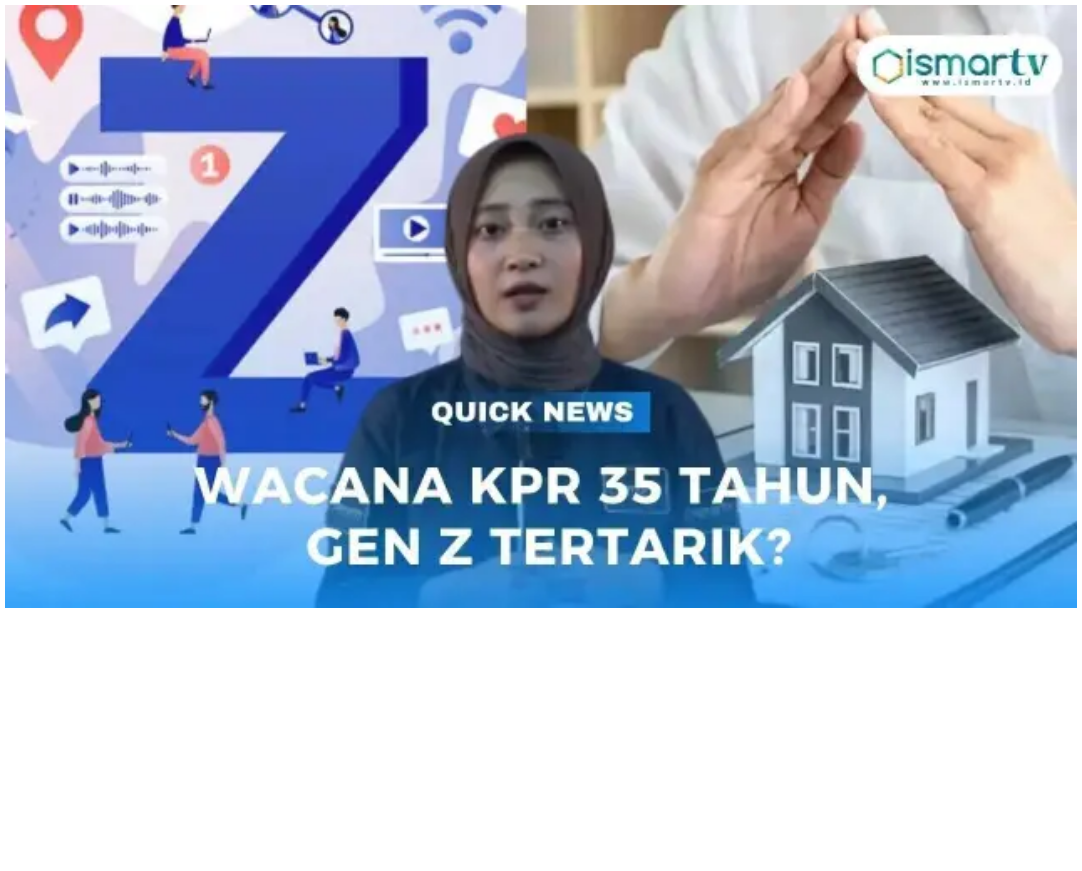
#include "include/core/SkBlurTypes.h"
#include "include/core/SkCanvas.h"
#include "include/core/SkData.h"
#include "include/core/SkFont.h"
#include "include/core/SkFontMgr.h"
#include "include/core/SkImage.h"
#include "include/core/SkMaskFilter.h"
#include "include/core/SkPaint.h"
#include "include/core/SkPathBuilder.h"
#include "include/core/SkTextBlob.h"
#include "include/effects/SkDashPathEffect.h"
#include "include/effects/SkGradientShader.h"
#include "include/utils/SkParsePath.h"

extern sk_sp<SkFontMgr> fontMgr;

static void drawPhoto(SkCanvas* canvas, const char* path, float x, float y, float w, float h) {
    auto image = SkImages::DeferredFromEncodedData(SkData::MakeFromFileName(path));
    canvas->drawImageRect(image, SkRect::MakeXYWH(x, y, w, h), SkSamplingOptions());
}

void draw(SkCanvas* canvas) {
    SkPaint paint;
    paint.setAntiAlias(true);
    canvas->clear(0xFFFFFFFF);
    drawPhoto(canvas, "assets/img1.png", 5, 5, 1072, 603);
}
